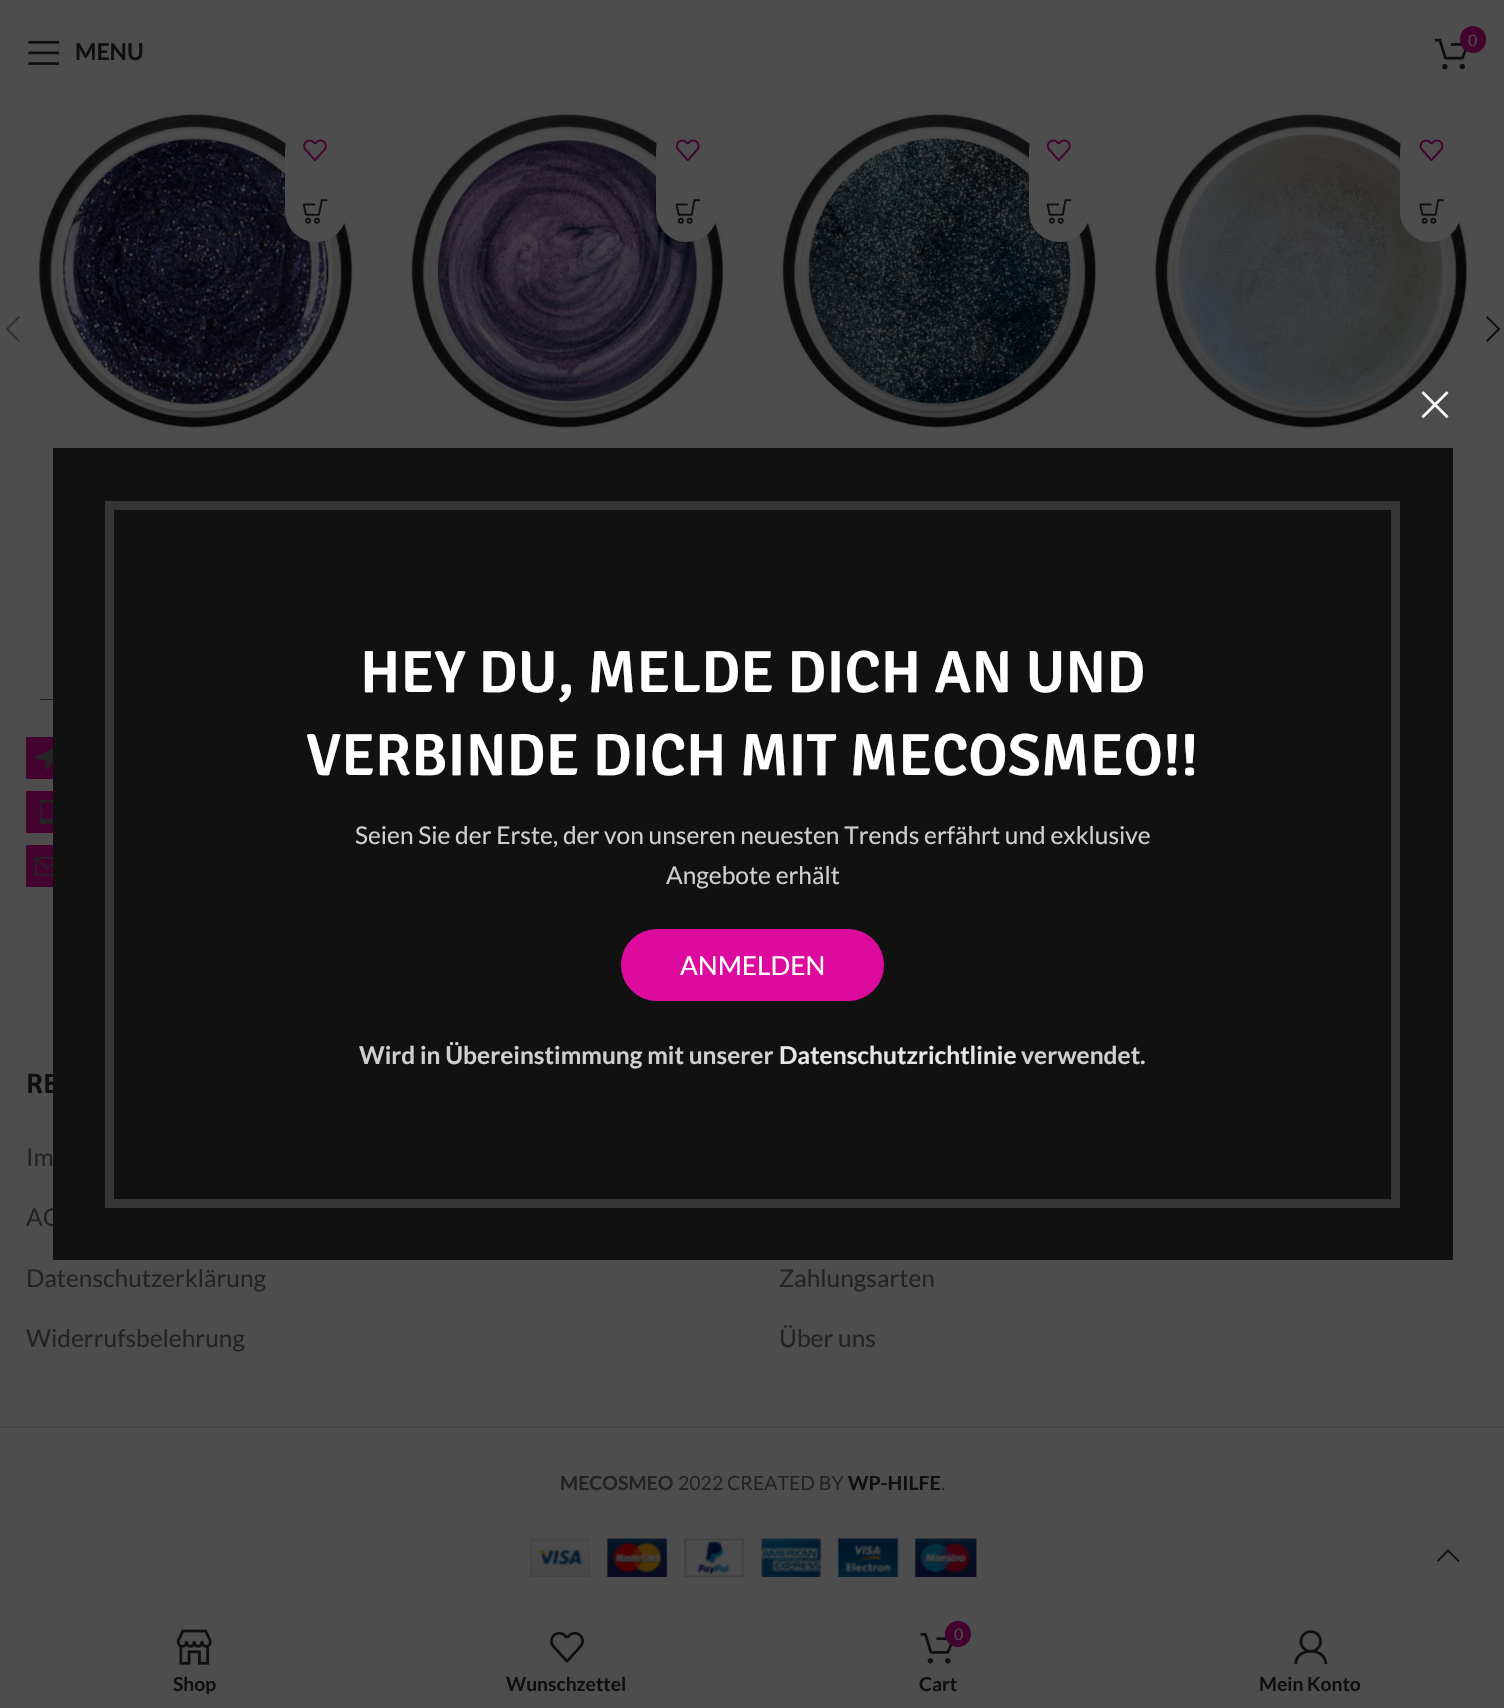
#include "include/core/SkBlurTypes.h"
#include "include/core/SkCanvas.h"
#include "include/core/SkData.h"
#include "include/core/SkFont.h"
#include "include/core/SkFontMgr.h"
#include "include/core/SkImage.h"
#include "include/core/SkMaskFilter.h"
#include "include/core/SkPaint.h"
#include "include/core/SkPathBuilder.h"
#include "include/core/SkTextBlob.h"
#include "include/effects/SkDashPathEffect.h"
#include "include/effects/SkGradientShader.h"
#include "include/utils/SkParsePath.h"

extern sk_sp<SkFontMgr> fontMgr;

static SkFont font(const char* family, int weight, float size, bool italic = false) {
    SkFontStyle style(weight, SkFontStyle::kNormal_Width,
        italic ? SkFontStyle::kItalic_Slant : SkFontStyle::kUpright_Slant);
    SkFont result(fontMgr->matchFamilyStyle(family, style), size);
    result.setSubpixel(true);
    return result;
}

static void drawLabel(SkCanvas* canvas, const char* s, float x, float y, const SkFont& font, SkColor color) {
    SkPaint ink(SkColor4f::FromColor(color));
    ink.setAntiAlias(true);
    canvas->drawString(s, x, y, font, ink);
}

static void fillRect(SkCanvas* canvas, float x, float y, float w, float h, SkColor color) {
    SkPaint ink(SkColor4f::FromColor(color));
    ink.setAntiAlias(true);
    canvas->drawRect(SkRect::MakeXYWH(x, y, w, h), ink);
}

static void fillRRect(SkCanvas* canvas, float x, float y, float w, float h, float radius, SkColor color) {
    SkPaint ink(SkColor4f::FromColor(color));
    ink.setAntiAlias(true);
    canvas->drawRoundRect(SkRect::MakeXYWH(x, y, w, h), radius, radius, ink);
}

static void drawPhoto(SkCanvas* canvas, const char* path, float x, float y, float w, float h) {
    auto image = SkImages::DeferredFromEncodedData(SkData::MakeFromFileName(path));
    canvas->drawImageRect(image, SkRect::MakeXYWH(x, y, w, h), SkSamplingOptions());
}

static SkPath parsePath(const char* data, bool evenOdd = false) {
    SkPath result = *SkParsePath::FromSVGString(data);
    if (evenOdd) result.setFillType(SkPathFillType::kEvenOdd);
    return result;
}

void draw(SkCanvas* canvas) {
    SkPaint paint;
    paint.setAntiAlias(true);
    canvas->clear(0xFF4D4D4D);
    drawPhoto(canvas, "assets/img1.png", 1435, 38, 32, 32);
    fillRRect(canvas, 1460, 26, 26, 27, 13, 0xFF42032F);
    SkFont font1 = font("Lato", 400, 16);
    drawLabel(canvas, "0", 1468, 46, font1, 0xFF4D4D4D);
    drawPhoto(canvas, "assets/img2.png", 28, 40, 32, 25);
    SkFont font2 = font("Lato", 700, 23);
    drawLabel(canvas, "MENU", 75, 60, font2, 0xFF0F0F0F);
    drawPhoto(canvas, "assets/img3.png", 38, 112, 315, 317);
    fillRRect(canvas, 285, 119, 62, 123, 31, 0xFF4D4D4D);
    drawPhoto(canvas, "assets/img4.png", 303, 139, 24, 22);
    drawPhoto(canvas, "assets/img5.png", 302, 199, 26, 25);
    drawPhoto(canvas, "assets/img6.png", 411, 114, 313, 315);
    fillRRect(canvas, 656, 119, 62, 123, 31, 0xFF4D4D4D);
    drawPhoto(canvas, "assets/img7.png", 675, 139, 25, 22);
    drawPhoto(canvas, "assets/img8.png", 675, 199, 25, 25);
    drawPhoto(canvas, "assets/img9.png", 781, 112, 316, 317);
    fillRRect(canvas, 1029, 119, 61, 123, 30.5f, 0xFF4D4D4D);
    drawPhoto(canvas, "assets/img7.png", 1046, 139, 25, 22);
    drawPhoto(canvas, "assets/img8.png", 1046, 199, 25, 25);
    drawPhoto(canvas, "assets/img10.png", 1154, 112, 314, 317);
    fillRRect(canvas, 1400, 119, 61, 123, 30.5f, 0xFF4D4D4D);
    drawPhoto(canvas, "assets/img11.png", 1419, 139, 25, 22);
    drawPhoto(canvas, "assets/img12.png", 1419, 199, 25, 25);
    paint.setColor(0xFF323232);
    canvas->drawPath(parsePath("M20 317.5L18.5 316L5.5 329L18.5 342L20 340.5L8.5 329Z"), paint);
    paint.setColor(0xFF0F0F0F);
    canvas->drawPath(parsePath("M1486 317.5L1497.5 329L1486 340.5L1487.5 342L1500.5 329L1487.5 316Z"), paint);
    drawPhoto(canvas, "assets/img13.png", 39, 648, 14, 56);
    fillRect(canvas, 26, 737, 27, 42, 0xFF42032F);
    drawPhoto(canvas, "assets/img14.png", 35, 748, 18, 22);
    fillRect(canvas, 26, 791, 27, 42, 0xFF42032F);
    drawPhoto(canvas, "assets/img15.png", 40, 800, 13, 24);
    fillRect(canvas, 26, 845, 27, 42, 0xFF42032F);
    drawPhoto(canvas, "assets/img16.png", 35, 857, 18, 19);
    SkFont font3 = font("Signika", 600, 28);
    drawLabel(canvas, "RE", 26, 1093, font3, 0xFF0F0F0F);
    SkFont font4 = font("Lato", 400, 24.5f);
    drawLabel(canvas, "Im", 26, 1166, font4, 0xFF232323);
    drawLabel(canvas, "AG", 26, 1226, font4, 0xFF232323);
    drawLabel(canvas, "Datenschutzerklärung", 26, 1287, font4, 0xFF232323);
    drawLabel(canvas, "Widerrufsbelehrung", 26, 1347, font4, 0xFF232323);
    drawLabel(canvas, "Zahlungsarten", 779, 1287, font4, 0xFF232323);
    drawLabel(canvas, "Über uns", 779, 1347, font4, 0xFF232323);
    fillRect(canvas, 0, 1426, 1504, 2, 0xFF444444);
    SkFont font5 = font("Lato", 700, 19.5f);
    drawLabel(canvas, "MECOSMEO", 560, 1490, font5, 0xFF232323);
    SkFont font6 = font("Lato", 400, 19.5f);
    drawLabel(canvas, "2022 CREATED BY", 678, 1490, font6, 0xFF232323);
    drawLabel(canvas, "WP-HILFE", 848, 1490, font5, 0xFF0F0F0F);
    drawLabel(canvas, ".", 941, 1490, font6, 0xFF232323);
    drawPhoto(canvas, "assets/img17.png", 530, 1538, 447, 39);
    drawPhoto(canvas, "assets/img18.png", 1421, 391, 28, 28);
    fillRect(canvas, 53, 448, 1400, 812, 0xFF111111);
    paint.setStroke(true);
    paint.setStrokeWidth(9);
    paint.setColor(0xFF353535);
    canvas->drawRect(SkRect::MakeXYWH(109.5f, 505.5f, 1286, 698), paint);
    SkFont font7 = font("Signika", 600, 59.5f);
    drawLabel(canvas, "HEY DU, MELDE DICH AN UND", 360, 692, font7, 0xFFFFFFFF);
    drawLabel(canvas, "VERBINDE DICH MIT MECOSMEO!!", 306, 775, font7, 0xFFFFFFFF);
    drawLabel(canvas, "Seien Sie der Erste, der von unseren neuesten Trends erfährt und exklusive", 355, 844, font4, 0xFFCFCFCF);
    drawLabel(canvas, "Angebote erhält", 666, 884, font4, 0xFFCFCFCF);
    paint.setStroke(false);
    paint.setColor(0xFFDC0B9D);
    canvas->drawRoundRect(SkRect::MakeXYWH(622, 930, 261, 70), 35, 35, paint);
    paint.setStroke(true);
    paint.setStrokeWidth(2);
    canvas->drawRoundRect(SkRect::MakeXYWH(622, 930, 261, 70), 35, 35, paint);
    SkFont font8 = font("Lato", 400, 26.25f);
    drawLabel(canvas, "ANMELDEN", 680, 975, font8, 0xFFFFFFFF);
    SkFont font9 = font("Lato", 700, 24.5f);
    drawLabel(canvas, "Wird in Übereinstimmung mit unserer", 359, 1064, font9, 0xFFCFCFCF);
    drawLabel(canvas, "Datenschutzrichtlinie", 779, 1064, font9, 0xFFE7E7E7);
    drawLabel(canvas, "verwendet.", 1021, 1064, font9, 0xFFCFCFCF);
    paint.setStroke(false);
    paint.setColor(0xFF0F0F0F);
    canvas->drawPath(parsePath("M1458.5 1562L1459.5 1560.5L1448 1549L1437 1560.5L1438 1562L1448 1552Z"), paint);
    drawPhoto(canvas, "assets/img19.png", 176, 1629, 36, 36);
    canvas->save();
    canvas->clipRect(SkRect::MakeXYWH(26, 1671, 338, 23));
    SkFont font10 = font("Lato", 700, 19.25f);
    drawLabel(canvas, "Shop", 173, 1691, font10, 0xFF0F0F0F);
    canvas->restore();
    drawPhoto(canvas, "assets/img20.png", 550, 1631, 34, 32);
    drawLabel(canvas, "Wunschzettel", 506, 1691, font10, 0xFF0F0F0F);
    drawPhoto(canvas, "assets/img21.png", 920, 1633, 33, 31);
    paint.setColor(0xFF42032F);
    canvas->drawCircle(958, 1634, 13, paint);
    drawLabel(canvas, "0", 954, 1640, font1, 0xFF4D4D4D);
    drawLabel(canvas, "Cart", 919, 1691, font10, 0xFF0F0F0F);
    drawPhoto(canvas, "assets/img22.png", 1294, 1630, 34, 35);
    drawLabel(canvas, "Mein Konto", 1259, 1691, font10, 0xFF0F0F0F);
}
